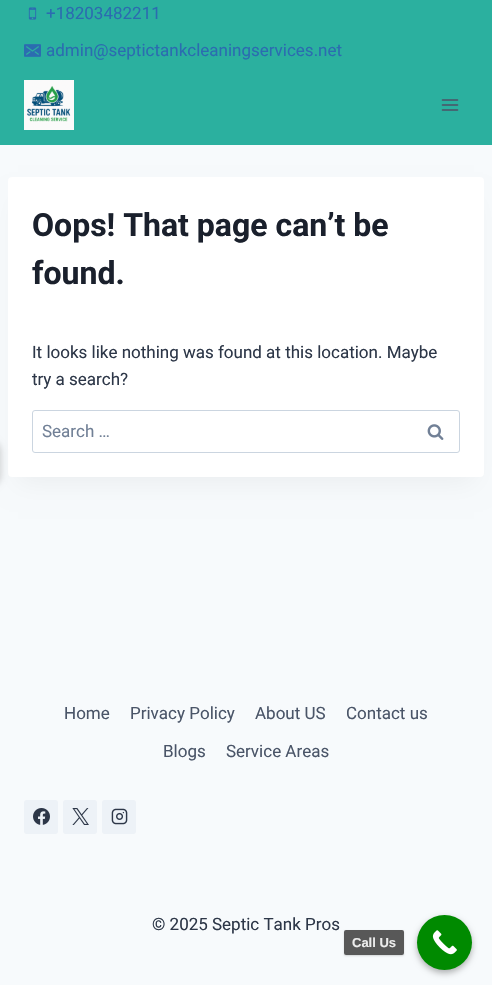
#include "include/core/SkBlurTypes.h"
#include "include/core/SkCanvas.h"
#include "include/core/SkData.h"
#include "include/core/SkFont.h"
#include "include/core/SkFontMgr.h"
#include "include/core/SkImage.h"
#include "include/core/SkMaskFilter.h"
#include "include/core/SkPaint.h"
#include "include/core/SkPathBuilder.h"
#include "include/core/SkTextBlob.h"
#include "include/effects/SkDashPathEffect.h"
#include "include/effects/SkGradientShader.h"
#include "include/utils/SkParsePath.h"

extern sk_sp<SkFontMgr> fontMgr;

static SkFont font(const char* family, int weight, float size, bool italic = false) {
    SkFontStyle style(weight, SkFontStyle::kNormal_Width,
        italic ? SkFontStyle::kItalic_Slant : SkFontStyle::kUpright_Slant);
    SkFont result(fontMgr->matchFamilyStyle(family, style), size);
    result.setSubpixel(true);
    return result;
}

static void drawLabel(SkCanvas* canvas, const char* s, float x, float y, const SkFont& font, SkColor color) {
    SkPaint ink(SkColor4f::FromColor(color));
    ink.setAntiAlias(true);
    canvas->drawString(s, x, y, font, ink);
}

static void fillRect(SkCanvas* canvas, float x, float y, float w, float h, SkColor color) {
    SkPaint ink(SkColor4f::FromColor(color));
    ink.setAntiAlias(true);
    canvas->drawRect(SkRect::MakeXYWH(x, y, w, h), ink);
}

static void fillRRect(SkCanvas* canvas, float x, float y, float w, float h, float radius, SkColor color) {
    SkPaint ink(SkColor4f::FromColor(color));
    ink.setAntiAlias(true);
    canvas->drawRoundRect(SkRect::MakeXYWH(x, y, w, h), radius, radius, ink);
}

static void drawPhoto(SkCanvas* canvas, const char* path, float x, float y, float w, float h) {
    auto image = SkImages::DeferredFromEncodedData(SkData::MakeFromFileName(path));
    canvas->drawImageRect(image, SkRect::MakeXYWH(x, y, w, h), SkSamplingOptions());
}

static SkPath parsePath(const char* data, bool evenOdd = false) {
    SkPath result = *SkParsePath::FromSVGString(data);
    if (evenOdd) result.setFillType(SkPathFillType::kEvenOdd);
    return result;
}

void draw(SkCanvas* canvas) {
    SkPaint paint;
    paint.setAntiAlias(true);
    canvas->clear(0xFFF7FAFC);
    paint.setColor(0x0D000000);
    paint.setMaskFilter(SkMaskFilter::MakeBlur(kNormal_SkBlurStyle, 12.5f));
    canvas->drawRect(SkRect::MakeXYWH(18, 202, 456, 280), paint);
    paint.setMaskFilter(nullptr);
    fillRRect(canvas, 8, 177, 476, 300, 4, 0xFFFFFFFF);
    paint.setColor(0x29000000);
    paint.setMaskFilter(SkMaskFilter::MakeBlur(kNormal_SkBlurStyle, 3));
    canvas->drawRoundRect(SkRect::MakeXYWH(-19, 441, 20, 45), 10, 10, paint);
    paint.setMaskFilter(nullptr);
    fillRect(canvas, 0, 0, 492, 145, 0xFF2BB09F);
    drawPhoto(canvas, "assets/img1.png", 28, 7, 9, 13);
    SkFont font1 = font("Roboto", 400, 17);
    drawLabel(canvas, "+18203482211", 46, 19, font1, 0xFF2B6CB0);
    drawPhoto(canvas, "assets/img2.png", 24, 44, 17, 13);
    drawLabel(canvas, "admin@septictankcleaningservices.net", 46, 56, font1, 0xFF2B6CB0);
    drawPhoto(canvas, "assets/img3.png", 24, 80, 50, 50);
    drawPhoto(canvas, "assets/img4.png", 441, 99, 18, 12);
    SkFont font2 = font("Roboto", 700, 32);
    drawLabel(canvas, "Oops! That page can’t be", 32, 236, font2, 0xFF1A202C);
    drawLabel(canvas, "found.", 32, 284, font2, 0xFF1A202C);
    drawLabel(canvas, "It looks like nothing was found at this location. Maybe", 32, 358, font1, 0xFF2D3748);
    drawLabel(canvas, "try a search?", 32, 385, font1, 0xFF2D3748);
    paint.setStroke(true);
    paint.setStrokeWidth(1);
    paint.setColor(0xFFCBD5E0);
    canvas->drawRoundRect(SkRect::MakeXYWH(32.5f, 410.5f, 427, 42), 2.5f, 2.5f, paint);
    drawLabel(canvas, "Search …", 42, 437, font1, 0xFF718096);
    drawPhoto(canvas, "assets/img5.png", 427, 424, 17, 16);
    drawLabel(canvas, "Home", 64, 719, font1, 0xFF4A5568);
    drawLabel(canvas, "Privacy Policy", 130, 719, font1, 0xFF4A5568);
    drawLabel(canvas, "About US", 255, 719, font1, 0xFF4A5568);
    drawLabel(canvas, "Contact us", 346, 719, font1, 0xFF4A5568);
    drawLabel(canvas, "Blogs", 163, 757, font1, 0xFF4A5568);
    drawLabel(canvas, "Service Areas", 226, 757, font1, 0xFF4A5568);
    fillRRect(canvas, 24, 800, 34, 34, 3, 0xFFEDF2F7);
    drawPhoto(canvas, "assets/img6.png", 33, 808, 17, 17);
    fillRRect(canvas, 63, 800, 34, 34, 3, 0xFFEDF2F7);
    drawPhoto(canvas, "assets/img7.png", 72, 808, 17, 17);
    fillRRect(canvas, 102, 800, 34, 34, 3, 0xFFEDF2F7);
    drawPhoto(canvas, "assets/img8.png", 111, 808, 17, 17);
    drawLabel(canvas, "© 2025 Septic Tank Pros", 152, 930, font1, 0xFF2D3748);
    paint.setStroke(false);
    paint.setColor(0x4D000000);
    paint.setMaskFilter(SkMaskFilter::MakeBlur(kNormal_SkBlurStyle, 3));
    canvas->drawRoundRect(SkRect::MakeXYWH(417, 918, 55, 55), 27.5f, 27.5f, paint);
    paint.setMaskFilter(nullptr);
    paint.setColor(0xFF008A00);
    canvas->drawCircle(444.5f, 942.5f, 27.5f, paint);
    drawPhoto(canvas, "assets/img9.png", 432, 930, 25, 25);
    canvas->save();
    canvas->clipPath(parsePath("M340 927H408V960H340ZM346 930H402C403 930 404 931 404 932V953C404 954 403 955 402 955H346C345 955 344 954 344 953V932C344 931 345 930 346 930Z", true), true);
    paint.setColor(0x26000000);
    paint.setMaskFilter(SkMaskFilter::MakeBlur(kNormal_SkBlurStyle, 1));
    canvas->drawRoundRect(SkRect::MakeXYWH(344, 931, 60, 25), 2, 2, paint);
    paint.setMaskFilter(nullptr);
    canvas->restore();
    fillRRect(canvas, 344, 930, 60, 25, 2, 0xE6464646);
    SkFont font3 = font("Liberation Sans", 700, 13);
    drawLabel(canvas, "Call Us", 352, 947, font3, 0xFFECECEC);
}
